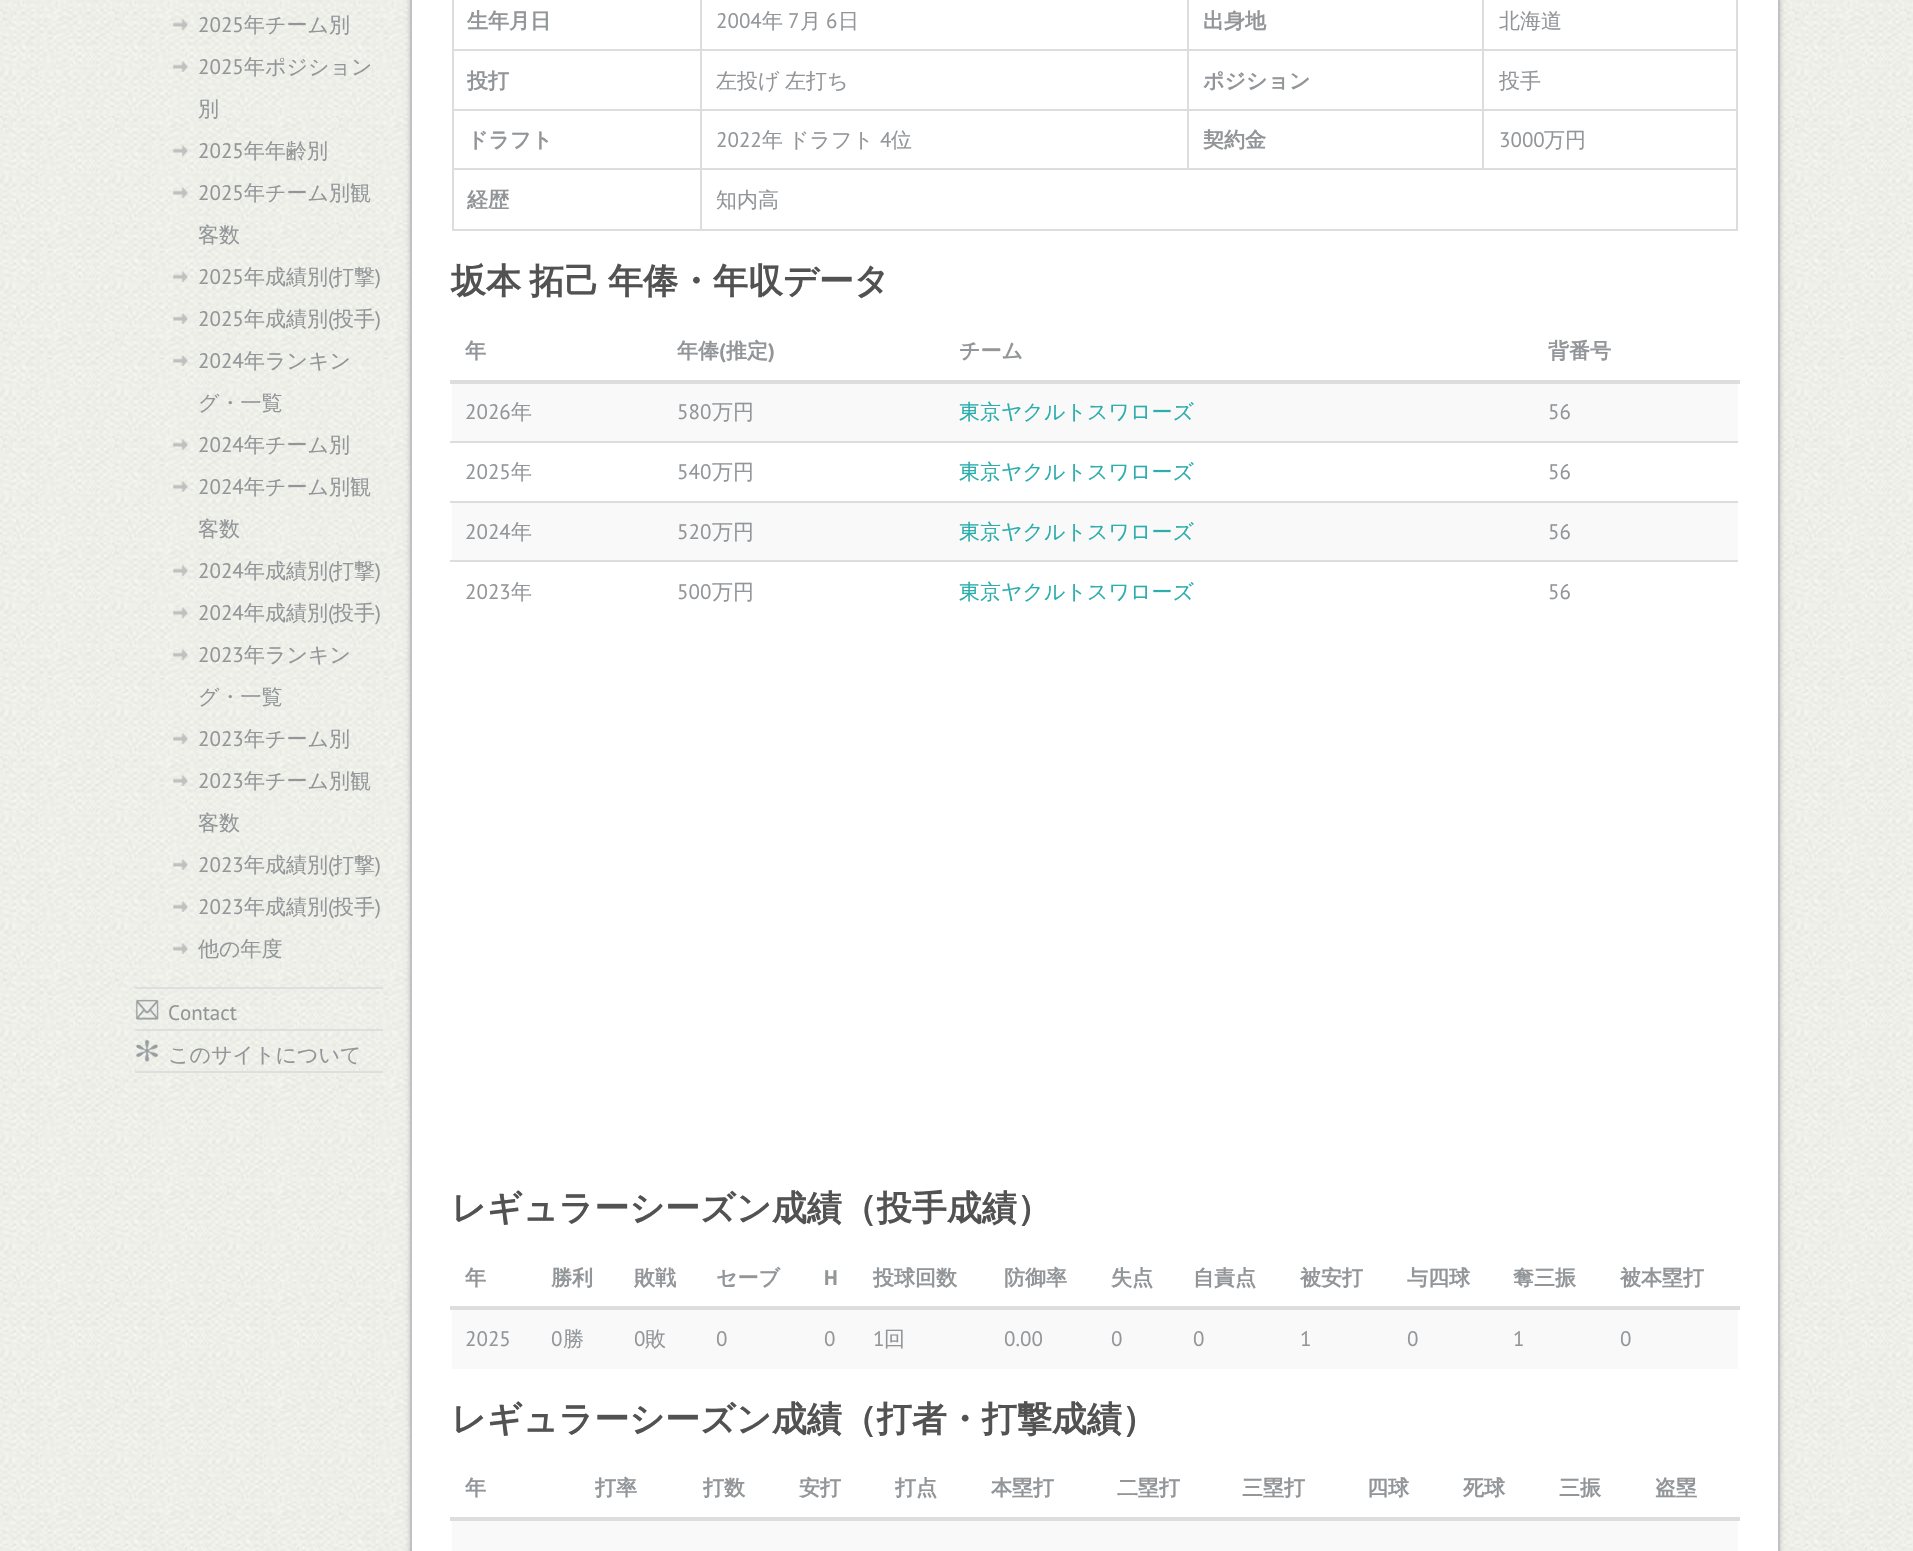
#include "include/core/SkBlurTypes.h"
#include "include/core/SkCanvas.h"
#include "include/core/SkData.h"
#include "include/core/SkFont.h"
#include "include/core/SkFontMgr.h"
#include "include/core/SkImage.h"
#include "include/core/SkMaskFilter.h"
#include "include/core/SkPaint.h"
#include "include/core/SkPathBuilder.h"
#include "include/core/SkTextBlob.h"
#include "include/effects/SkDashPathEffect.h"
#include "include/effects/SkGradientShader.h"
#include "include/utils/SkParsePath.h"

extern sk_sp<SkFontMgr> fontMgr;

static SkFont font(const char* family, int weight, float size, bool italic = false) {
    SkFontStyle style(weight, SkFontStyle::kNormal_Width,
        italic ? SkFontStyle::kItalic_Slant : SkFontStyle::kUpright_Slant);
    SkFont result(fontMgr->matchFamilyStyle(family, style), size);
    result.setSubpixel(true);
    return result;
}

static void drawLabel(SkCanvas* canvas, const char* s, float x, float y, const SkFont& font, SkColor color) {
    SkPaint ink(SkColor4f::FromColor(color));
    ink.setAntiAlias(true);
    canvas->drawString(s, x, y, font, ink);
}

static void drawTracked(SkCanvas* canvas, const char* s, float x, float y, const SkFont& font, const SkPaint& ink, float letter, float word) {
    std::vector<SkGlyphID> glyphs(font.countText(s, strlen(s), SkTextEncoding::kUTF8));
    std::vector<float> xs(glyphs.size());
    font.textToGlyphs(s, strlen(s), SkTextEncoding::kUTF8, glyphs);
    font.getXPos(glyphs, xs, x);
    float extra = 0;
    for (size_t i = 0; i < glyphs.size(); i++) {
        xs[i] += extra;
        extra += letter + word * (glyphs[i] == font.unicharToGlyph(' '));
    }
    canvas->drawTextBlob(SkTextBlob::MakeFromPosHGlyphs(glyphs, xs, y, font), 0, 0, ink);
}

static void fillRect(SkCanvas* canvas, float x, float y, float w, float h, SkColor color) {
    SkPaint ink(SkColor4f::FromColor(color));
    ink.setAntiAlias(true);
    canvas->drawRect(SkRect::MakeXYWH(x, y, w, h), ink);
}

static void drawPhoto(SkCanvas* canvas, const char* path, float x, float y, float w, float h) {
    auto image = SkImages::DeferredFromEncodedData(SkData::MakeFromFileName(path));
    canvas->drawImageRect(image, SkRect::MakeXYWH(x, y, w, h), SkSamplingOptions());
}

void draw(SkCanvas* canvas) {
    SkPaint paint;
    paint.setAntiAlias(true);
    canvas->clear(0xFFFFFFFF);
    drawPhoto(canvas, "assets/img1.png", 0, 0, 1913, 1551);
    fillRect(canvas, 135, 987, 248, 2, 0xFFDEDEDE);
    drawPhoto(canvas, "assets/img2.png", 173, 19, 15, 11);
    SkFont font1 = font("PT Sans", 400, 21);
    drawLabel(canvas, "2025", 198, 32, font1, 0xFF939699);
    SkFont font2 = font("WenQuanYi Zen Hei", 500, 21);
    drawLabel(canvas, "年チーム別", 244, 32, font2, 0xFF939699);
    drawPhoto(canvas, "assets/img3.png", 173, 61, 15, 11);
    drawLabel(canvas, "2025", 198, 74, font1, 0xFF939699);
    drawLabel(canvas, "年ポジション", 244, 74, font2, 0xFF939699);
    drawLabel(canvas, "別", 198, 116, font2, 0xFF939699);
    drawPhoto(canvas, "assets/img4.png", 173, 145, 15, 11);
    drawLabel(canvas, "2025", 198, 158, font1, 0xFF939699);
    drawLabel(canvas, "年年齢別", 244, 158, font2, 0xFF939699);
    drawPhoto(canvas, "assets/img5.png", 173, 187, 15, 11);
    drawLabel(canvas, "2025", 198, 200, font1, 0xFF939699);
    drawLabel(canvas, "年チーム別観", 244, 200, font2, 0xFF939699);
    drawLabel(canvas, "客数", 198, 242, font2, 0xFF939699);
    drawPhoto(canvas, "assets/img6.png", 173, 271, 15, 11);
    drawLabel(canvas, "2025", 198, 284, font1, 0xFF939699);
    drawLabel(canvas, "年成績別", 244, 284, font2, 0xFF939699);
    drawLabel(canvas, "(", 328, 284, font1, 0xFF939699);
    drawLabel(canvas, "打撃", 333, 284, font2, 0xFF939699);
    drawLabel(canvas, ")", 375, 284, font1, 0xFF939699);
    drawPhoto(canvas, "assets/img7.png", 173, 313, 15, 11);
    drawLabel(canvas, "2025", 198, 326, font1, 0xFF939699);
    drawLabel(canvas, "年成績別", 244, 326, font2, 0xFF939699);
    drawLabel(canvas, "(", 328, 326, font1, 0xFF939699);
    drawLabel(canvas, "投手", 333, 326, font2, 0xFF939699);
    drawLabel(canvas, ")", 375, 326, font1, 0xFF939699);
    drawPhoto(canvas, "assets/img8.png", 173, 355, 15, 11);
    drawLabel(canvas, "2024", 198, 368, font1, 0xFF939699);
    drawLabel(canvas, "年ランキン", 244, 368, font2, 0xFF939699);
    drawLabel(canvas, "グ・一覧", 198, 410, font2, 0xFF939699);
    drawPhoto(canvas, "assets/img9.png", 173, 439, 15, 11);
    drawLabel(canvas, "2024", 198, 452, font1, 0xFF939699);
    drawLabel(canvas, "年チーム別", 244, 452, font2, 0xFF939699);
    drawPhoto(canvas, "assets/img10.png", 173, 481, 15, 11);
    drawLabel(canvas, "2024", 198, 494, font1, 0xFF939699);
    drawLabel(canvas, "年チーム別観", 244, 494, font2, 0xFF939699);
    drawLabel(canvas, "客数", 198, 536, font2, 0xFF939699);
    drawPhoto(canvas, "assets/img11.png", 173, 565, 15, 11);
    drawLabel(canvas, "2024", 198, 578, font1, 0xFF939699);
    drawLabel(canvas, "年成績別", 244, 578, font2, 0xFF939699);
    drawLabel(canvas, "(", 328, 578, font1, 0xFF939699);
    drawLabel(canvas, "打撃", 333, 578, font2, 0xFF939699);
    drawLabel(canvas, ")", 375, 578, font1, 0xFF939699);
    drawPhoto(canvas, "assets/img12.png", 173, 607, 15, 11);
    drawLabel(canvas, "2024", 198, 620, font1, 0xFF939699);
    drawLabel(canvas, "年成績別", 244, 620, font2, 0xFF939699);
    drawLabel(canvas, "(", 328, 620, font1, 0xFF939699);
    drawLabel(canvas, "投手", 333, 620, font2, 0xFF939699);
    drawLabel(canvas, ")", 375, 620, font1, 0xFF939699);
    drawPhoto(canvas, "assets/img13.png", 173, 649, 15, 11);
    drawLabel(canvas, "2023", 198, 662, font1, 0xFF939699);
    drawLabel(canvas, "年ランキン", 244, 662, font2, 0xFF939699);
    drawLabel(canvas, "グ・一覧", 198, 704, font2, 0xFF939699);
    drawPhoto(canvas, "assets/img14.png", 173, 733, 15, 11);
    drawLabel(canvas, "2023", 198, 746, font1, 0xFF939699);
    drawLabel(canvas, "年チーム別", 244, 746, font2, 0xFF939699);
    drawPhoto(canvas, "assets/img15.png", 173, 775, 15, 11);
    drawLabel(canvas, "2023", 198, 788, font1, 0xFF939699);
    drawLabel(canvas, "年チーム別観", 244, 788, font2, 0xFF939699);
    drawLabel(canvas, "客数", 198, 830, font2, 0xFF939699);
    drawPhoto(canvas, "assets/img16.png", 173, 859, 15, 11);
    drawLabel(canvas, "2023", 198, 872, font1, 0xFF939699);
    drawLabel(canvas, "年成績別", 244, 872, font2, 0xFF939699);
    drawLabel(canvas, "(", 328, 872, font1, 0xFF939699);
    drawLabel(canvas, "打撃", 333, 872, font2, 0xFF939699);
    drawLabel(canvas, ")", 375, 872, font1, 0xFF939699);
    drawPhoto(canvas, "assets/img17.png", 173, 901, 15, 11);
    drawLabel(canvas, "2023", 198, 914, font1, 0xFF939699);
    drawLabel(canvas, "年成績別", 244, 914, font2, 0xFF939699);
    drawLabel(canvas, "(", 328, 914, font1, 0xFF939699);
    drawLabel(canvas, "投手", 333, 914, font2, 0xFF939699);
    drawLabel(canvas, ")", 375, 914, font1, 0xFF939699);
    drawPhoto(canvas, "assets/img18.png", 173, 943, 15, 11);
    drawLabel(canvas, "他の年度", 198, 956, font2, 0xFF939699);
    drawPhoto(canvas, "assets/img19.png", 135, 999, 24, 21);
    drawLabel(canvas, "Contact", 168, 1020, font1, 0xFF939699);
    fillRect(canvas, 135, 1029, 248, 2, 0xFFDEDEDE);
    drawPhoto(canvas, "assets/img20.png", 136, 1039, 22, 23);
    drawLabel(canvas, "このサイトについて", 168, 1062, font2, 0xFF939699);
    fillRect(canvas, 135, 1071, 248, 2, 0xFFDEDEDE);
    paint.setColor(0x33000000);
    paint.setMaskFilter(SkMaskFilter::MakeBlur(kNormal_SkBlurStyle, 2.5f));
    canvas->drawRect(SkRect::MakeXYWH(410, -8, 1370, 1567), paint);
    paint.setMaskFilter(nullptr);
    paint.setColor(0xFFFFFFFF);
    canvas->drawRect(SkRect::MakeXYWH(411, -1, 1368, 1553), paint);
    paint.setStroke(true);
    paint.setStrokeWidth(2);
    paint.setColor(0xFFBEC2C8);
    canvas->drawRect(SkRect::MakeXYWH(411, -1, 1368, 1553), paint);
    fillRect(canvas, 1736, 0, 2, 231, 0xFFDDDDDD);
    fillRect(canvas, 452, 229, 1286, 2, 0xFFDDDDDD);
    fillRect(canvas, 452, 0, 2, 231, 0xFFDDDDDD);
    SkFont font3 = font("WenQuanYi Zen Hei", 700, 21);
    drawLabel(canvas, "生年月日", 467, 28, font3, 0xFF939699);
    fillRect(canvas, 1482, 49, 256, 2, 0xFFDDDDDD);
    fillRect(canvas, 1482, 109, 256, 2, 0xFFDDDDDD);
    fillRect(canvas, 700, 168, 1038, 2, 0xFFDDDDDD);
    fillRect(canvas, 1482, 109, 2, 61, 0xFFDDDDDD);
    fillRect(canvas, 1187, 109, 297, 2, 0xFFDDDDDD);
    fillRect(canvas, 1482, 49, 2, 61, 0xFFDDDDDD);
    fillRect(canvas, 1187, 49, 297, 2, 0xFFDDDDDD);
    fillRect(canvas, 1187, 109, 2, 61, 0xFFDDDDDD);
    fillRect(canvas, 700, 109, 488, 2, 0xFFDDDDDD);
    fillRect(canvas, 1187, 49, 2, 61, 0xFFDDDDDD);
    fillRect(canvas, 700, 49, 488, 2, 0xFFDDDDDD);
    fillRect(canvas, 700, 168, 2, 63, 0xFFDDDDDD);
    fillRect(canvas, 452, 168, 250, 2, 0xFFDDDDDD);
    fillRect(canvas, 700, 109, 2, 61, 0xFFDDDDDD);
    fillRect(canvas, 452, 109, 250, 2, 0xFFDDDDDD);
    fillRect(canvas, 700, 49, 2, 61, 0xFFDDDDDD);
    fillRect(canvas, 452, 49, 250, 2, 0xFFDDDDDD);
    fillRect(canvas, 700, 0, 2, 51, 0xFFDDDDDD);
    drawLabel(canvas, "2004", 716, 28, font1, 0xFF939699);
    drawLabel(canvas, "年", 762, 28, font2, 0xFF939699);
    drawLabel(canvas, "7", 788, 28, font1, 0xFF939699);
    drawLabel(canvas, "月", 800, 28, font2, 0xFF939699);
    drawLabel(canvas, "6", 826, 28, font1, 0xFF939699);
    drawLabel(canvas, "日", 838, 28, font2, 0xFF939699);
    fillRect(canvas, 1187, 0, 2, 51, 0xFFDDDDDD);
    drawLabel(canvas, "出身地", 1203, 28, font3, 0xFF939699);
    fillRect(canvas, 1482, 0, 2, 51, 0xFFDDDDDD);
    drawLabel(canvas, "北海道", 1499, 28, font2, 0xFF939699);
    drawLabel(canvas, "投打", 467, 88, font3, 0xFF939699);
    drawLabel(canvas, "左投げ", 716, 88, font2, 0xFF939699);
    drawLabel(canvas, "左打ち", 785, 88, font2, 0xFF939699);
    drawLabel(canvas, "ポジション", 1203, 88, font3, 0xFF939699);
    drawLabel(canvas, "投手", 1499, 88, font2, 0xFF939699);
    drawLabel(canvas, "ドラフト", 467, 147, font3, 0xFF939699);
    drawLabel(canvas, "2022", 716, 147, font1, 0xFF939699);
    drawLabel(canvas, "年", 762, 147, font2, 0xFF939699);
    drawLabel(canvas, "ドラフト", 788, 147, font2, 0xFF939699);
    drawLabel(canvas, "4", 880, 147, font1, 0xFF939699);
    drawLabel(canvas, "位", 891, 147, font2, 0xFF939699);
    drawLabel(canvas, "契約金", 1203, 147, font3, 0xFF939699);
    drawLabel(canvas, "3000", 1499, 147, font1, 0xFF939699);
    drawLabel(canvas, "万円", 1544, 147, font2, 0xFF939699);
    drawLabel(canvas, "経歴", 467, 207, font3, 0xFF939699);
    drawLabel(canvas, "知内高", 716, 207, font2, 0xFF939699);
    SkFont font4 = font("WenQuanYi Zen Hei", 700, 35);
    paint.setStroke(false);
    paint.setColor(0xFF525252);
    drawTracked(canvas, "坂本 拓己 年俸・年収データ", 451, 293, font4, paint, 0, -2);
    drawLabel(canvas, "年", 465, 358, font3, 0xFF939699);
    drawLabel(canvas, "年俸", 677, 358, font3, 0xFF939699);
    SkFont font5 = font("PT Sans", 700, 21);
    drawLabel(canvas, "(", 719, 358, font5, 0xFF939699);
    drawLabel(canvas, "推定", 726, 358, font3, 0xFF939699);
    drawLabel(canvas, ")", 768, 358, font5, 0xFF939699);
    drawLabel(canvas, "チーム", 959, 358, font3, 0xFF939699);
    fillRect(canvas, 450, 380, 1290, 4, 0xFFDDDDDD);
    drawLabel(canvas, "背番号", 1548, 358, font3, 0xFF939699);
    fillRect(canvas, 452, 384, 1286, 57, 0xFFF9F9F9);
    drawLabel(canvas, "2026", 465, 419, font1, 0xFF939699);
    drawLabel(canvas, "年", 511, 419, font2, 0xFF939699);
    drawLabel(canvas, "580", 677, 419, font1, 0xFF939699);
    drawLabel(canvas, "万円", 712, 419, font2, 0xFF939699);
    drawLabel(canvas, "東京ヤクルトスワローズ", 959, 419, font2, 0xFF2DADAC);
    drawLabel(canvas, "56", 1548, 419, font1, 0xFF939699);
    drawLabel(canvas, "2025", 465, 479, font1, 0xFF939699);
    drawLabel(canvas, "年", 511, 479, font2, 0xFF939699);
    drawLabel(canvas, "540", 677, 479, font1, 0xFF939699);
    drawLabel(canvas, "万円", 712, 479, font2, 0xFF939699);
    drawLabel(canvas, "東京ヤクルトスワローズ", 959, 479, font2, 0xFF2DADAC);
    fillRect(canvas, 450, 441, 1288, 2, 0xFFDDDDDD);
    drawLabel(canvas, "56", 1548, 479, font1, 0xFF939699);
    fillRect(canvas, 452, 503, 1286, 57, 0xFFF9F9F9);
    drawLabel(canvas, "2024", 465, 539, font1, 0xFF939699);
    drawLabel(canvas, "年", 511, 539, font2, 0xFF939699);
    drawLabel(canvas, "520", 677, 539, font1, 0xFF939699);
    drawLabel(canvas, "万円", 712, 539, font2, 0xFF939699);
    drawLabel(canvas, "東京ヤクルトスワローズ", 959, 539, font2, 0xFF2DADAC);
    fillRect(canvas, 450, 501, 1288, 2, 0xFFDDDDDD);
    drawLabel(canvas, "56", 1548, 539, font1, 0xFF939699);
    drawLabel(canvas, "2023", 465, 599, font1, 0xFF939699);
    drawLabel(canvas, "年", 511, 599, font2, 0xFF939699);
    drawLabel(canvas, "500", 677, 599, font1, 0xFF939699);
    drawLabel(canvas, "万円", 712, 599, font2, 0xFF939699);
    drawLabel(canvas, "東京ヤクルトスワローズ", 959, 599, font2, 0xFF2DADAC);
    fillRect(canvas, 450, 560, 1288, 2, 0xFFDDDDDD);
    drawLabel(canvas, "56", 1548, 599, font1, 0xFF939699);
    drawLabel(canvas, "レギュラーシーズン成績（投手成績）", 451, 1220, font4, 0xFF525252);
    drawLabel(canvas, "年", 465, 1285, font3, 0xFF939699);
    drawLabel(canvas, "勝利", 551, 1285, font3, 0xFF939699);
    drawLabel(canvas, "敗戦", 634, 1285, font3, 0xFF939699);
    drawLabel(canvas, "セーブ", 716, 1285, font3, 0xFF939699);
    drawLabel(canvas, "H", 824, 1285, font5, 0xFF939699);
    drawLabel(canvas, "投球回数", 873, 1285, font3, 0xFF939699);
    drawLabel(canvas, "防御率", 1004, 1285, font3, 0xFF939699);
    drawLabel(canvas, "失点", 1111, 1285, font3, 0xFF939699);
    drawLabel(canvas, "自責点", 1193, 1285, font3, 0xFF939699);
    drawLabel(canvas, "被安打", 1300, 1285, font3, 0xFF939699);
    drawLabel(canvas, "与四球", 1407, 1285, font3, 0xFF939699);
    drawLabel(canvas, "奪三振", 1513, 1285, font3, 0xFF939699);
    fillRect(canvas, 450, 1306, 1290, 4, 0xFFDDDDDD);
    drawLabel(canvas, "被本塁打", 1620, 1285, font3, 0xFF939699);
    fillRect(canvas, 452, 1310, 1286, 59, 0xFFF9F9F9);
    drawLabel(canvas, "2025", 465, 1346, font1, 0xFF939699);
    drawLabel(canvas, "0", 551, 1346, font1, 0xFF939699);
    drawLabel(canvas, "勝", 563, 1346, font2, 0xFF939699);
    drawLabel(canvas, "0", 634, 1346, font1, 0xFF939699);
    drawLabel(canvas, "敗", 645, 1346, font2, 0xFF939699);
    drawLabel(canvas, "0", 716, 1346, font1, 0xFF939699);
    drawLabel(canvas, "0", 824, 1346, font1, 0xFF939699);
    drawLabel(canvas, "1", 873, 1346, font1, 0xFF939699);
    drawLabel(canvas, "回", 884, 1346, font2, 0xFF939699);
    drawLabel(canvas, "0.00", 1004, 1346, font1, 0xFF939699);
    drawLabel(canvas, "0", 1111, 1346, font1, 0xFF939699);
    drawLabel(canvas, "0", 1193, 1346, font1, 0xFF939699);
    drawLabel(canvas, "1", 1300, 1346, font1, 0xFF939699);
    drawLabel(canvas, "0", 1407, 1346, font1, 0xFF939699);
    drawLabel(canvas, "1", 1513, 1346, font1, 0xFF939699);
    drawLabel(canvas, "0", 1620, 1346, font1, 0xFF939699);
    drawLabel(canvas, "レギュラーシーズン成績（打者・打撃成績）", 451, 1431, font4, 0xFF525252);
    drawLabel(canvas, "年", 465, 1495, font3, 0xFF939699);
    drawLabel(canvas, "打率", 595, 1495, font3, 0xFF939699);
    drawLabel(canvas, "打数", 703, 1495, font3, 0xFF939699);
    drawLabel(canvas, "安打", 799, 1495, font3, 0xFF939699);
    drawLabel(canvas, "打点", 895, 1495, font3, 0xFF939699);
    drawLabel(canvas, "本塁打", 991, 1495, font3, 0xFF939699);
    drawLabel(canvas, "二塁打", 1117, 1495, font3, 0xFF939699);
    drawLabel(canvas, "三塁打", 1242, 1495, font3, 0xFF939699);
    drawLabel(canvas, "四球", 1367, 1495, font3, 0xFF939699);
    drawLabel(canvas, "死球", 1463, 1495, font3, 0xFF939699);
    drawLabel(canvas, "三振", 1559, 1495, font3, 0xFF939699);
    fillRect(canvas, 450, 1517, 1290, 4, 0xFFDDDDDD);
    drawLabel(canvas, "盗塁", 1655, 1495, font3, 0xFF939699);
    fillRect(canvas, 452, 1521, 1286, 30, 0xFFF9F9F9);
}
